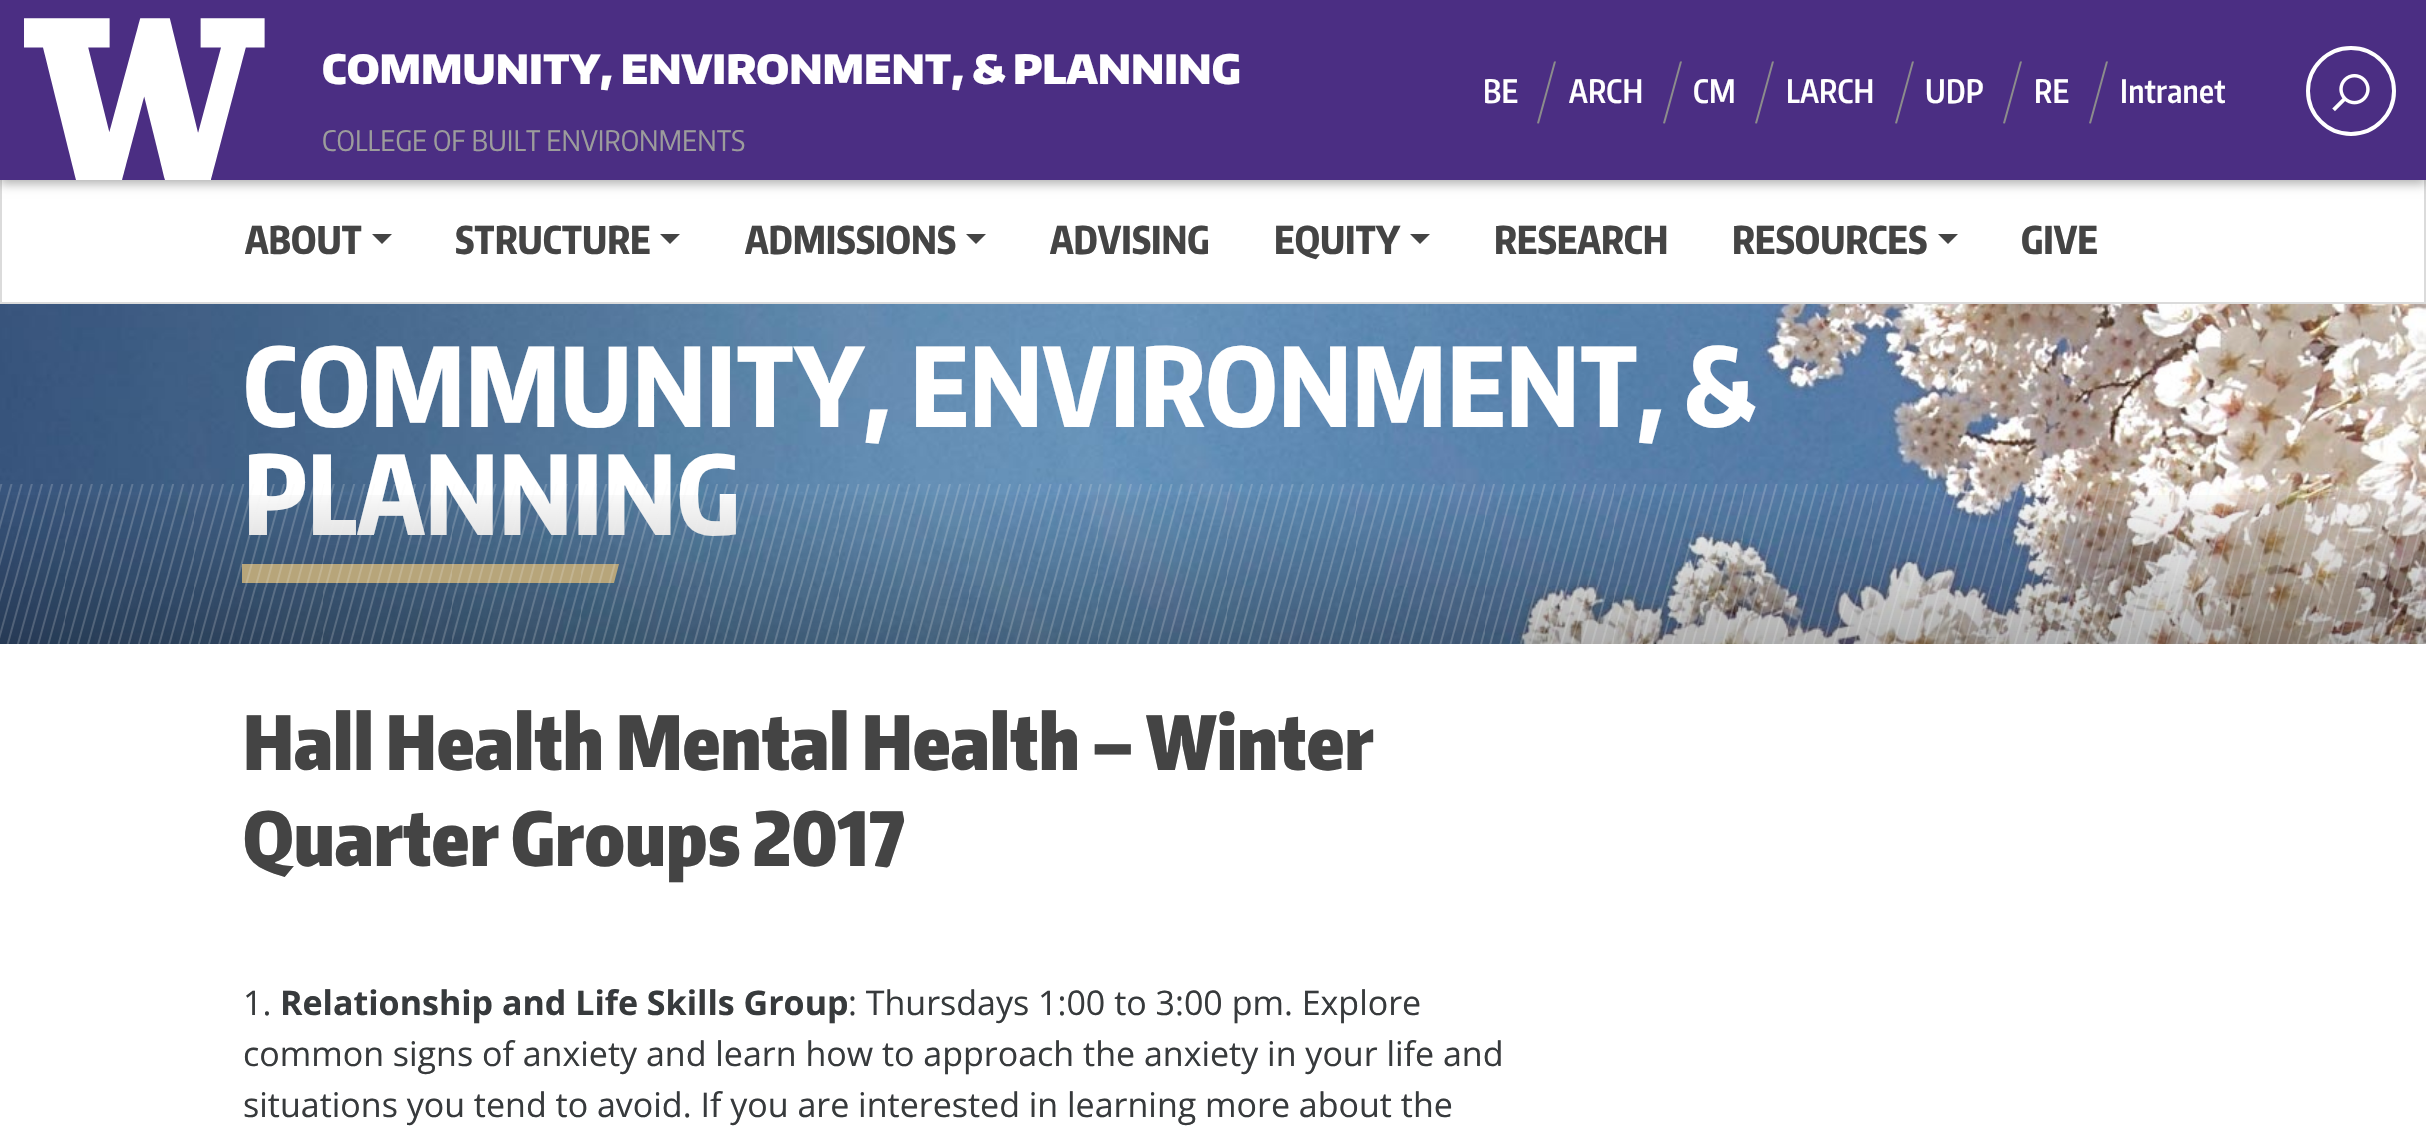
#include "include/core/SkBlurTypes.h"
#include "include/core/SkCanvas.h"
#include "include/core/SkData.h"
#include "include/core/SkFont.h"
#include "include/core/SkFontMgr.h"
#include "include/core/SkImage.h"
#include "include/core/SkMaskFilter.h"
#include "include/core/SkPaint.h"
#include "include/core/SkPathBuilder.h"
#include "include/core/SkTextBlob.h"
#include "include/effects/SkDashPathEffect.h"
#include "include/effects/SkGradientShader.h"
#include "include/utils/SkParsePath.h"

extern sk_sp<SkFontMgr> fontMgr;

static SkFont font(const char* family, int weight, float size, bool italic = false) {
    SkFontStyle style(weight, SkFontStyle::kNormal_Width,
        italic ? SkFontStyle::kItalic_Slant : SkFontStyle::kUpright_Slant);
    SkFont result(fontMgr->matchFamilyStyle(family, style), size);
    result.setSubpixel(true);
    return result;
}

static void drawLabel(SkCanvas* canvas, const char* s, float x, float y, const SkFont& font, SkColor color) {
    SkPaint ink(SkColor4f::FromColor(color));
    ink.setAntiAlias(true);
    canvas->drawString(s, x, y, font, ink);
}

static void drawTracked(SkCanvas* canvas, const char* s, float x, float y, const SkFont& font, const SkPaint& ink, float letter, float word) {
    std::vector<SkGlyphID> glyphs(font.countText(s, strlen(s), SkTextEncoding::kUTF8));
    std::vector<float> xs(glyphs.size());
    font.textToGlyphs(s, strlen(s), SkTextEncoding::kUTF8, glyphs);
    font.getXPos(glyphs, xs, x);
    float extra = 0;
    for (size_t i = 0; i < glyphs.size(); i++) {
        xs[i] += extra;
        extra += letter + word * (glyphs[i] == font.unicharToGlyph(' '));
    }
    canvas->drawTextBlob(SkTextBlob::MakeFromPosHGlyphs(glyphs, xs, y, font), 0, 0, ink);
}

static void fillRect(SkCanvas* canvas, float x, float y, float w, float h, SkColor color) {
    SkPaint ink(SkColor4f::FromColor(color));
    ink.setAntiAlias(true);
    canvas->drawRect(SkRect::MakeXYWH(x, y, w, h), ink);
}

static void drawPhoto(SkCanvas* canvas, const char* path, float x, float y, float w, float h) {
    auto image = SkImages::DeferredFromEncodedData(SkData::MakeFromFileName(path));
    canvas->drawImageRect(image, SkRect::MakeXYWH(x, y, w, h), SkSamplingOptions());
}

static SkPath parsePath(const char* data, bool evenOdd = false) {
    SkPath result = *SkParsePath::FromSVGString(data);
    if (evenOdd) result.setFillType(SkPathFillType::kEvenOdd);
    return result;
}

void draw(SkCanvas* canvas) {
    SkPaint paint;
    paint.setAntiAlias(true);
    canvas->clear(0xFFFFFFFF);
    paint.setColor(0xFFDBDBDB);
    canvas->drawPath(parsePath("M2426 180V304L2424 302V180Z"), paint);
    paint.setColor(0x24000000);
    canvas->drawPath(parsePath("M2426 304H0L2 302H2424Z"), paint);
    canvas->drawPath(parsePath("M0 304V180H2V302Z"), paint);
    paint.setColor(0x4D000000);
    paint.setMaskFilter(SkMaskFilter::MakeBlur(kNormal_SkBlurStyle, 5));
    canvas->drawRect(SkRect::MakeXYWH(0, 4, 2426, 180), paint);
    paint.setMaskFilter(nullptr);
    fillRect(canvas, 0, 0, 2426, 180, 0xFF4B2E83);
    drawPhoto(canvas, "assets/img1.png", 24, 18, 241, 162);
    SkFont font1 = font("Encode Sans", 900, 40);
    drawLabel(canvas, "COMMUNITY, ENVIRONMENT, & PLANNING", 322, 84, font1, 0xFFFFFFFF);
    SkFont font2 = font("Encode Sans Condensed", 400, 28);
    drawLabel(canvas, "COLLEGE OF BUILT ENVIRONMENTS", 322, 151, font2, 0xFF9C9C9C);
    SkFont font3 = font("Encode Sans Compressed", 600, 32);
    paint.setColor(0xFFFFFFFF);
    drawTracked(canvas, "BE", 1483, 103, font3, paint, 0.25f, 0);
    drawPhoto(canvas, "assets/img2.png", 1537, 61, 19, 63);
    drawTracked(canvas, "ARCH", 1569, 103, font3, paint, 0.25f, 0);
    drawPhoto(canvas, "assets/img2.png", 1663, 61, 19, 63);
    drawTracked(canvas, "CM", 1693, 103, font3, paint, 0.25f, 0);
    drawPhoto(canvas, "assets/img2.png", 1755, 61, 19, 63);
    drawTracked(canvas, "LARCH", 1786, 103, font3, paint, 0.25f, 0);
    drawPhoto(canvas, "assets/img2.png", 1895, 61, 19, 63);
    drawTracked(canvas, "UDP", 1925, 103, font3, paint, 0.25f, 0);
    drawPhoto(canvas, "assets/img2.png", 2003, 61, 19, 63);
    drawTracked(canvas, "RE", 2034, 103, font3, paint, 0.25f, 0);
    drawPhoto(canvas, "assets/img2.png", 2089, 61, 19, 63);
    drawTracked(canvas, "Intranet", 2120, 103, font3, paint, 0.25f, 0);
    paint.setStroke(true);
    paint.setStrokeWidth(4);
    canvas->drawCircle(2351, 91, 43, paint);
    drawPhoto(canvas, "assets/img3.png", 2332, 74, 38, 38);
    SkFont font4 = font("Encode Sans Compressed", 800, 38);
    drawLabel(canvas, "ABOUT", 245, 254, font4, 0xFF444444);
    paint.setStroke(false);
    paint.setColor(0xFF444444);
    canvas->drawPath(parsePath("M372 234H392L382 244Z"), paint);
    drawLabel(canvas, "STRUCTURE", 455, 254, font4, 0xFF444444);
    canvas->drawPath(parsePath("M660 234H680L670 244Z"), paint);
    drawLabel(canvas, "ADMISSIONS", 745, 254, font4, 0xFF444444);
    canvas->drawPath(parsePath("M966 234H986L976 244Z"), paint);
    drawLabel(canvas, "ADVISING", 1050, 254, font4, 0xFF444444);
    drawLabel(canvas, "EQUITY", 1274, 254, font4, 0xFF444444);
    canvas->drawPath(parsePath("M1410 234H1430L1420 244Z"), paint);
    drawLabel(canvas, "RESEARCH", 1494, 254, font4, 0xFF444444);
    drawLabel(canvas, "RESOURCES", 1732, 254, font4, 0xFF444444);
    canvas->drawPath(parsePath("M1938 234H1958L1948 244Z"), paint);
    drawLabel(canvas, "GIVE", 2021, 254, font4, 0xFF444444);
    drawPhoto(canvas, "assets/img4.png", 0, 304, 2426, 340);
    SkFont font5 = font("Encode Sans Compressed", 800, 108.75f);
    drawLabel(canvas, "COMMUNITY, ENVIRONMENT, &", 243, 427, font5, 0xFFFFFFFF);
    drawLabel(canvas, "PLANNING", 243, 535, font5, 0xFFFFFFFF);
    {
        const SkColor colors[] = {0x00000000, 0x52000000};
        const float stops[] = {0, 1};
        const SkPoint ends[] = {{0, 484}, {0, 644}};
        paint.setShader(SkGradientShader::MakeLinear(ends, colors, stops, 2, SkTileMode::kClamp));
        paint.setAlpha(255);
    }
    canvas->drawRect(SkRect::MakeXYWH(0, 495, 2426, 149), paint);
    canvas->save();
    canvas->clipRect(SkRect::MakeXYWH(242, 564, 1942, 20));
    paint.setShader(nullptr);
    paint.setColor(0xFFB7A57A);
    canvas->drawPath(parsePath("M235 564H619L614 583H230Z"), paint);
    canvas->restore();
    drawPhoto(canvas, "assets/img5.png", 0, 484, 2426, 160);
    SkFont font6 = font("Encode Sans Compressed", 900, 74);
    drawLabel(canvas, "Hall Health Mental Health – Winter", 243, 770, font6, 0xFF444444);
    drawLabel(canvas, "Quarter Groups 2017", 243, 866, font6, 0xFF444444);
    SkFont font7 = font("Open Sans", 400, 34);
    drawLabel(canvas, "1.", 243, 1015, font7, 0xFF373A3C);
    SkFont font8 = font("Open Sans", 700, 34);
    drawLabel(canvas, "Relationship and Life Skills Group", 280, 1015, font8, 0xFF373A3C);
    drawLabel(canvas, ": Thursdays 1:00 to 3:00 pm. Explore", 848, 1015, font7, 0xFF373A3C);
    drawLabel(canvas, "common signs of anxiety and learn how to approach the anxiety in your life and", 243, 1066, font7, 0xFF373A3C);
    drawLabel(canvas, "situations you tend to avoid. If you are interested in learning more about the", 243, 1117, font7, 0xFF373A3C);
}
